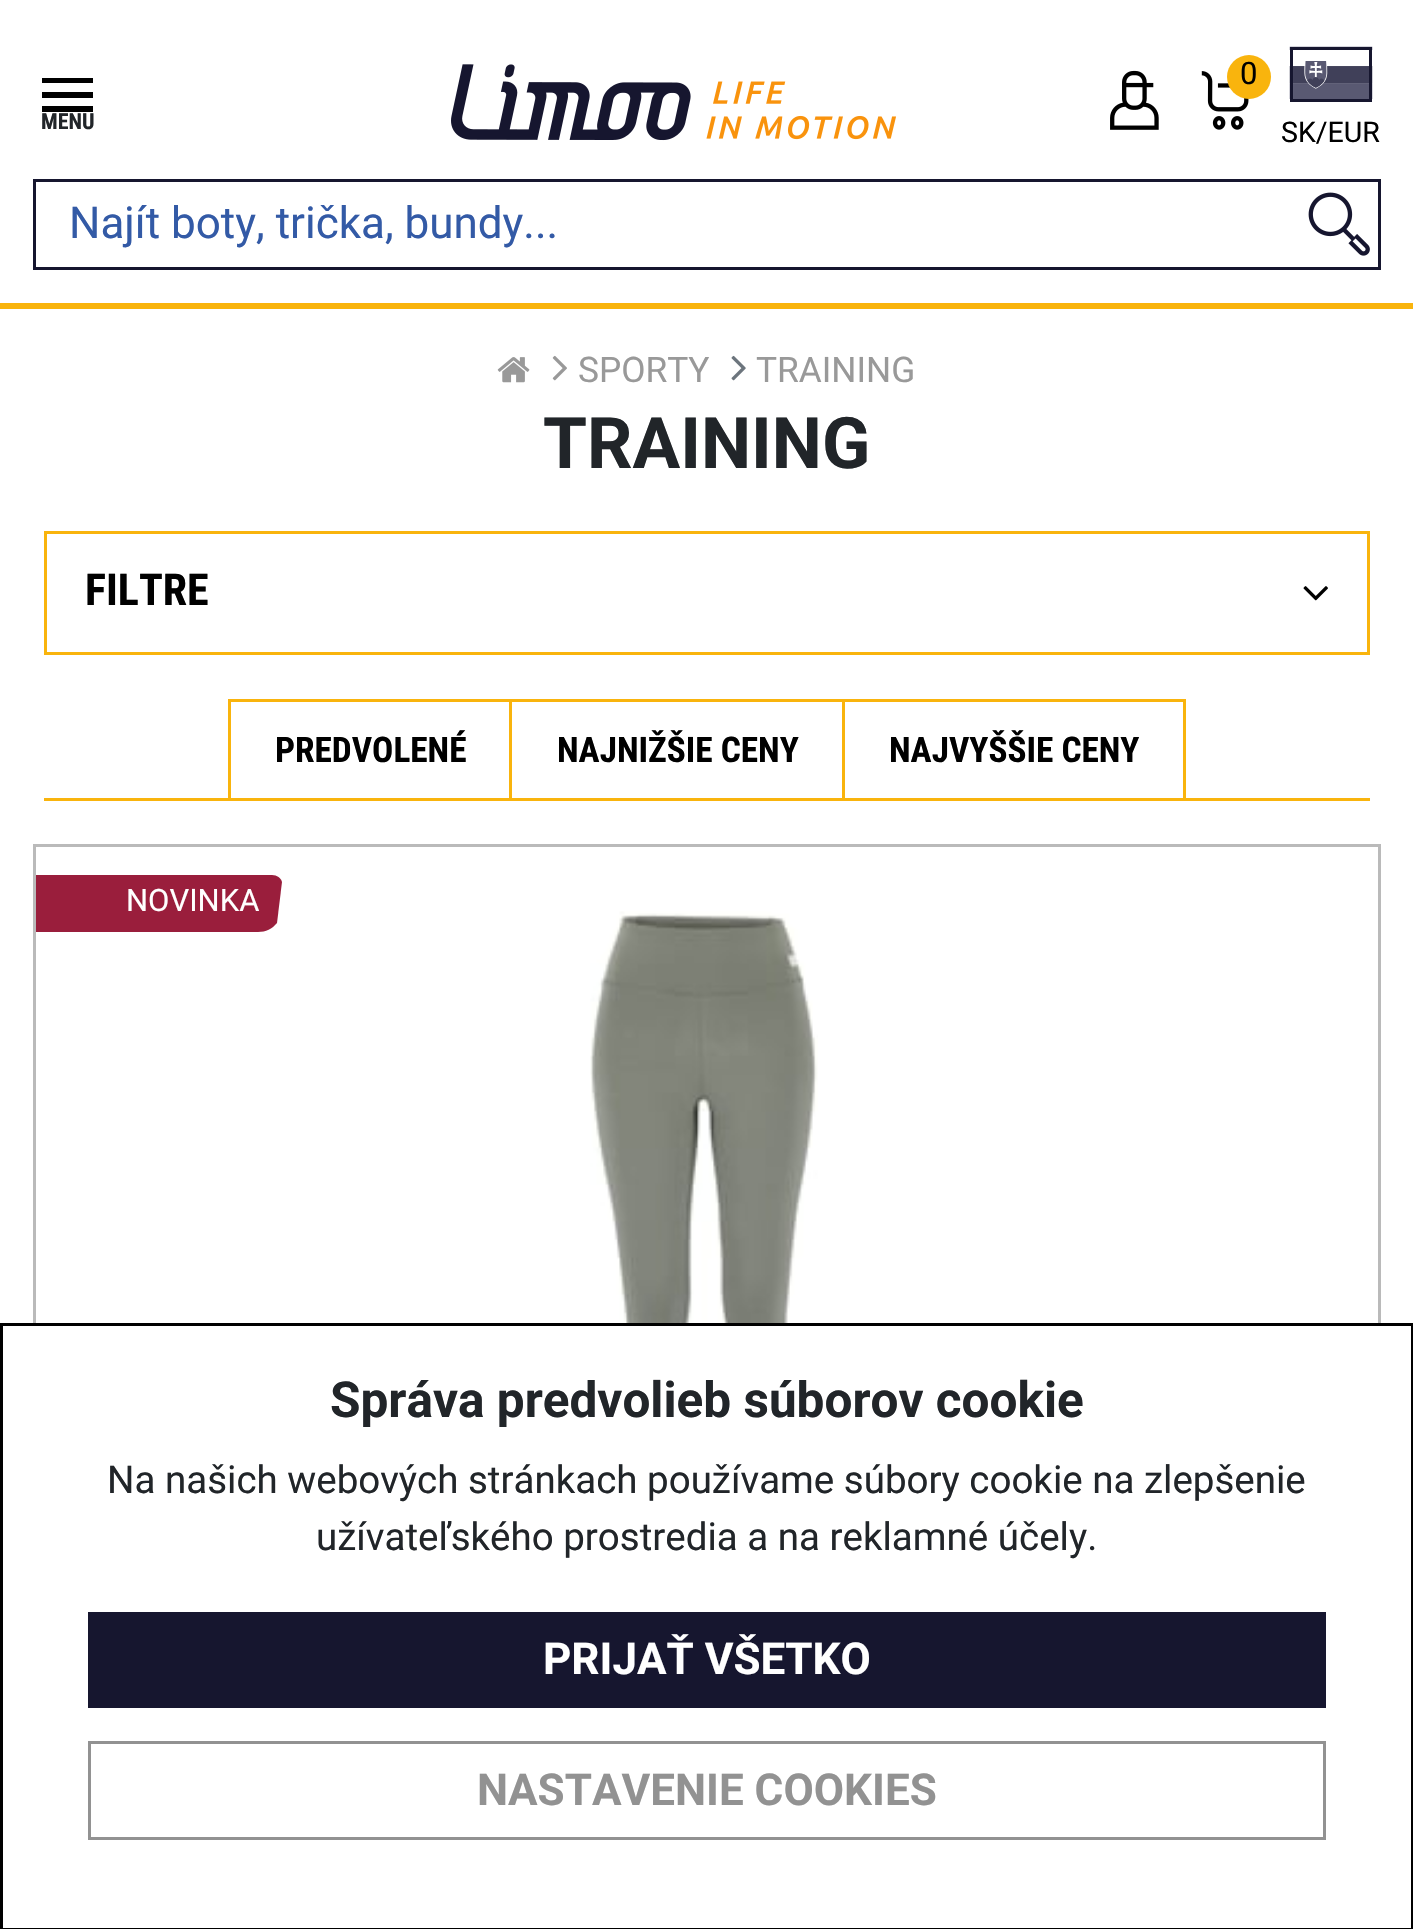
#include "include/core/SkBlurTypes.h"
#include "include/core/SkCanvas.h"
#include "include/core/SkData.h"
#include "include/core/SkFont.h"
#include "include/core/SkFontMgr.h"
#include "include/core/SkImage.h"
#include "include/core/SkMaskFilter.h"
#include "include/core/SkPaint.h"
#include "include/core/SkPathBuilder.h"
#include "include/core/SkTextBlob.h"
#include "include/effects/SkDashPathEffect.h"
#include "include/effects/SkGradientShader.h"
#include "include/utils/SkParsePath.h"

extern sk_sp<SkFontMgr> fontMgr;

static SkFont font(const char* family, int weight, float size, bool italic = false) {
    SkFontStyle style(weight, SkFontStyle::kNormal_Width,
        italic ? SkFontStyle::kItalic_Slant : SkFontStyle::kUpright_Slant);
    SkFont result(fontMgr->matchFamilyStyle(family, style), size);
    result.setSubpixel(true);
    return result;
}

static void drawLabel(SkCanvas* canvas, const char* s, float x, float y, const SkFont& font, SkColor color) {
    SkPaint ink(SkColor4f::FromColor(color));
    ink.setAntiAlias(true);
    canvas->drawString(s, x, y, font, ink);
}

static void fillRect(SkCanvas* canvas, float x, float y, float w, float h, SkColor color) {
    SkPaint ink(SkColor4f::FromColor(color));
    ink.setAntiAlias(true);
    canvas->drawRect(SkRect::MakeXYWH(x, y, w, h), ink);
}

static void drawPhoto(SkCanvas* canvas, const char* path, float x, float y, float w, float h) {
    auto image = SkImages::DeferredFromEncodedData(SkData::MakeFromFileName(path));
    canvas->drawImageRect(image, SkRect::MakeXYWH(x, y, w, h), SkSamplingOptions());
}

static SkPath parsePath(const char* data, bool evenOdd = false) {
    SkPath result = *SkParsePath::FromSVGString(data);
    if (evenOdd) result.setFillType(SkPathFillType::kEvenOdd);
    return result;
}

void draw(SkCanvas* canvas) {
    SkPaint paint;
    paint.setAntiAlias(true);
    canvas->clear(0xFFFFFFFF);
    fillRect(canvas, 0, 303, 1413, 6, 0xFFF9B40D);
    paint.setColor(0xFF000000);
    canvas->drawPath(parsePath("M42 112H93V106H42ZM42 98H93V92H42ZM42 78V83H93V78Z"), paint);
    SkFont font1 = font("Roboto Condensed", 700, 22);
    drawLabel(canvas, "MENU", 41, 129, font1, 0xFF212529);
    drawPhoto(canvas, "assets/img1.png", 451, 64, 445, 77);
    drawPhoto(canvas, "assets/img2.png", 1110, 70, 49, 60);
    drawPhoto(canvas, "assets/img3.png", 1201, 71, 48, 59);
    paint.setColor(0xFFF9B40D);
    canvas->drawCircle(1249, 77, 22, paint);
    SkFont font2 = font("Roboto", 400, 31);
    drawLabel(canvas, "0", 1240, 84, font2, 0xFF000000);
    drawPhoto(canvas, "assets/img4.png", 1289, 46, 84, 53);
    paint.setStroke(true);
    paint.setStrokeWidth(3);
    paint.setColor(0xFF16162F);
    canvas->drawRect(SkRect::MakeXYWH(1291.5f, 48.5f, 79, 52), paint);
    SkFont font3 = font("Roboto", 400, 28.5f);
    drawLabel(canvas, "SK/EUR", 1281, 142, font3, 0xFF000000);
    canvas->drawRect(SkRect::MakeXYWH(34.5f, 180.5f, 1345, 88), paint);
    SkFont font4 = font("Roboto", 400, 44);
    drawLabel(canvas, "Najít boty, trička, bundy...", 69, 238, font4, 0xFF335AA6);
    drawPhoto(canvas, "assets/img5.png", 1308, 192, 62, 64);
    drawPhoto(canvas, "assets/img6.png", 497, 357, 33, 26);
    drawPhoto(canvas, "assets/img7.png", 552, 355, 15, 26);
    SkFont font5 = font("Roboto", 400, 35.25f);
    drawLabel(canvas, "SPORTY", 578, 382, font5, 0xFF999999);
    drawPhoto(canvas, "assets/img8.png", 731, 355, 15, 26);
    drawLabel(canvas, "TRAINING", 756, 382, font5, 0xFF999999);
    SkFont font6 = font("Roboto", 700, 71);
    drawLabel(canvas, "TRAINING", 543, 468, font6, 0xFF212529);
    paint.setColor(0xFFF9B40D);
    canvas->drawRect(SkRect::MakeXYWH(45.5f, 532.5f, 1323, 121), paint);
    SkFont font7 = font("Roboto Condensed", 700, 44);
    drawLabel(canvas, "FILTRE", 85, 605, font7, 0xFF000000);
    drawPhoto(canvas, "assets/img9.png", 1303, 586, 25, 15);
    fillRect(canvas, 44, 798, 1326, 3, 0xFFF9B40D);
    fillRect(canvas, 228, 699, 284, 3, 0xFFF9B40D);
    fillRect(canvas, 509, 699, 3, 99, 0xFFF9B40D);
    fillRect(canvas, 228, 699, 3, 99, 0xFFF9B40D);
    SkFont font8 = font("Roboto Condensed", 700, 35.25f);
    drawLabel(canvas, "PREDVOLENÉ", 275, 762, font8, 0xFF000000);
    fillRect(canvas, 509, 699, 335, 3, 0xFFF9B40D);
    fillRect(canvas, 842, 699, 3, 99, 0xFFF9B40D);
    drawLabel(canvas, "NAJNIŽŠIE CENY", 557, 762, font8, 0xFF000000);
    fillRect(canvas, 842, 699, 343, 3, 0xFFF9B40D);
    fillRect(canvas, 1183, 699, 3, 99, 0xFFF9B40D);
    drawLabel(canvas, "NAJVYŠŠIE CENY", 889, 762, font8, 0xFF000000);
    paint.setColor(0xFFBABABA);
    canvas->drawRect(SkRect::MakeXYWH(34.5f, 845.5f, 1345, 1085), paint);
    paint.setStroke(false);
    paint.setColor(0xFF9A1E3C);
    canvas->drawPath(parsePath("M36 875H272C277 875 281 878 282 882L277 923C272 929 266 932 258 932H36Z"), paint);
    drawLabel(canvas, "NOVINKA", 126, 911, font2, 0xFFFFFFFF);
    drawPhoto(canvas, "assets/img10.png", 590, 911, 228, 412);
    fillRect(canvas, 33, 1326, 1348, 602, 0xFFFFFFFF);
    paint.setStroke(true);
    paint.setColor(0xFF000000);
    canvas->drawRect(SkRect::MakeXYWH(1.5f, 1324.5f, 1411, 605), paint);
    SkFont font9 = font("Roboto", 700, 49.5f);
    drawLabel(canvas, "Správa predvolieb súborov cookie", 330, 1417, font9, 0xFF212529);
    SkFont font10 = font("Roboto", 400, 38.5f);
    drawLabel(canvas, "Na našich webových stránkach používame súbory cookie na zlepšenie", 107, 1493, font10, 0xFF212529);
    drawLabel(canvas, "užívateľského prostredia a na reklamné účely.", 316, 1550, font10, 0xFF212529);
    fillRect(canvas, 88, 1612, 1238, 96, 0xFF16162F);
    SkFont font11 = font("Roboto", 700, 44);
    drawLabel(canvas, "PRIJAŤ VŠETKO", 543, 1674, font11, 0xFFFFFFFF);
    paint.setColor(0xFF929292);
    canvas->drawRect(SkRect::MakeXYWH(89.5f, 1742.5f, 1235, 96), paint);
    drawLabel(canvas, "NASTAVENIE COOKIES", 477, 1805, font11, 0xFF929292);
}
